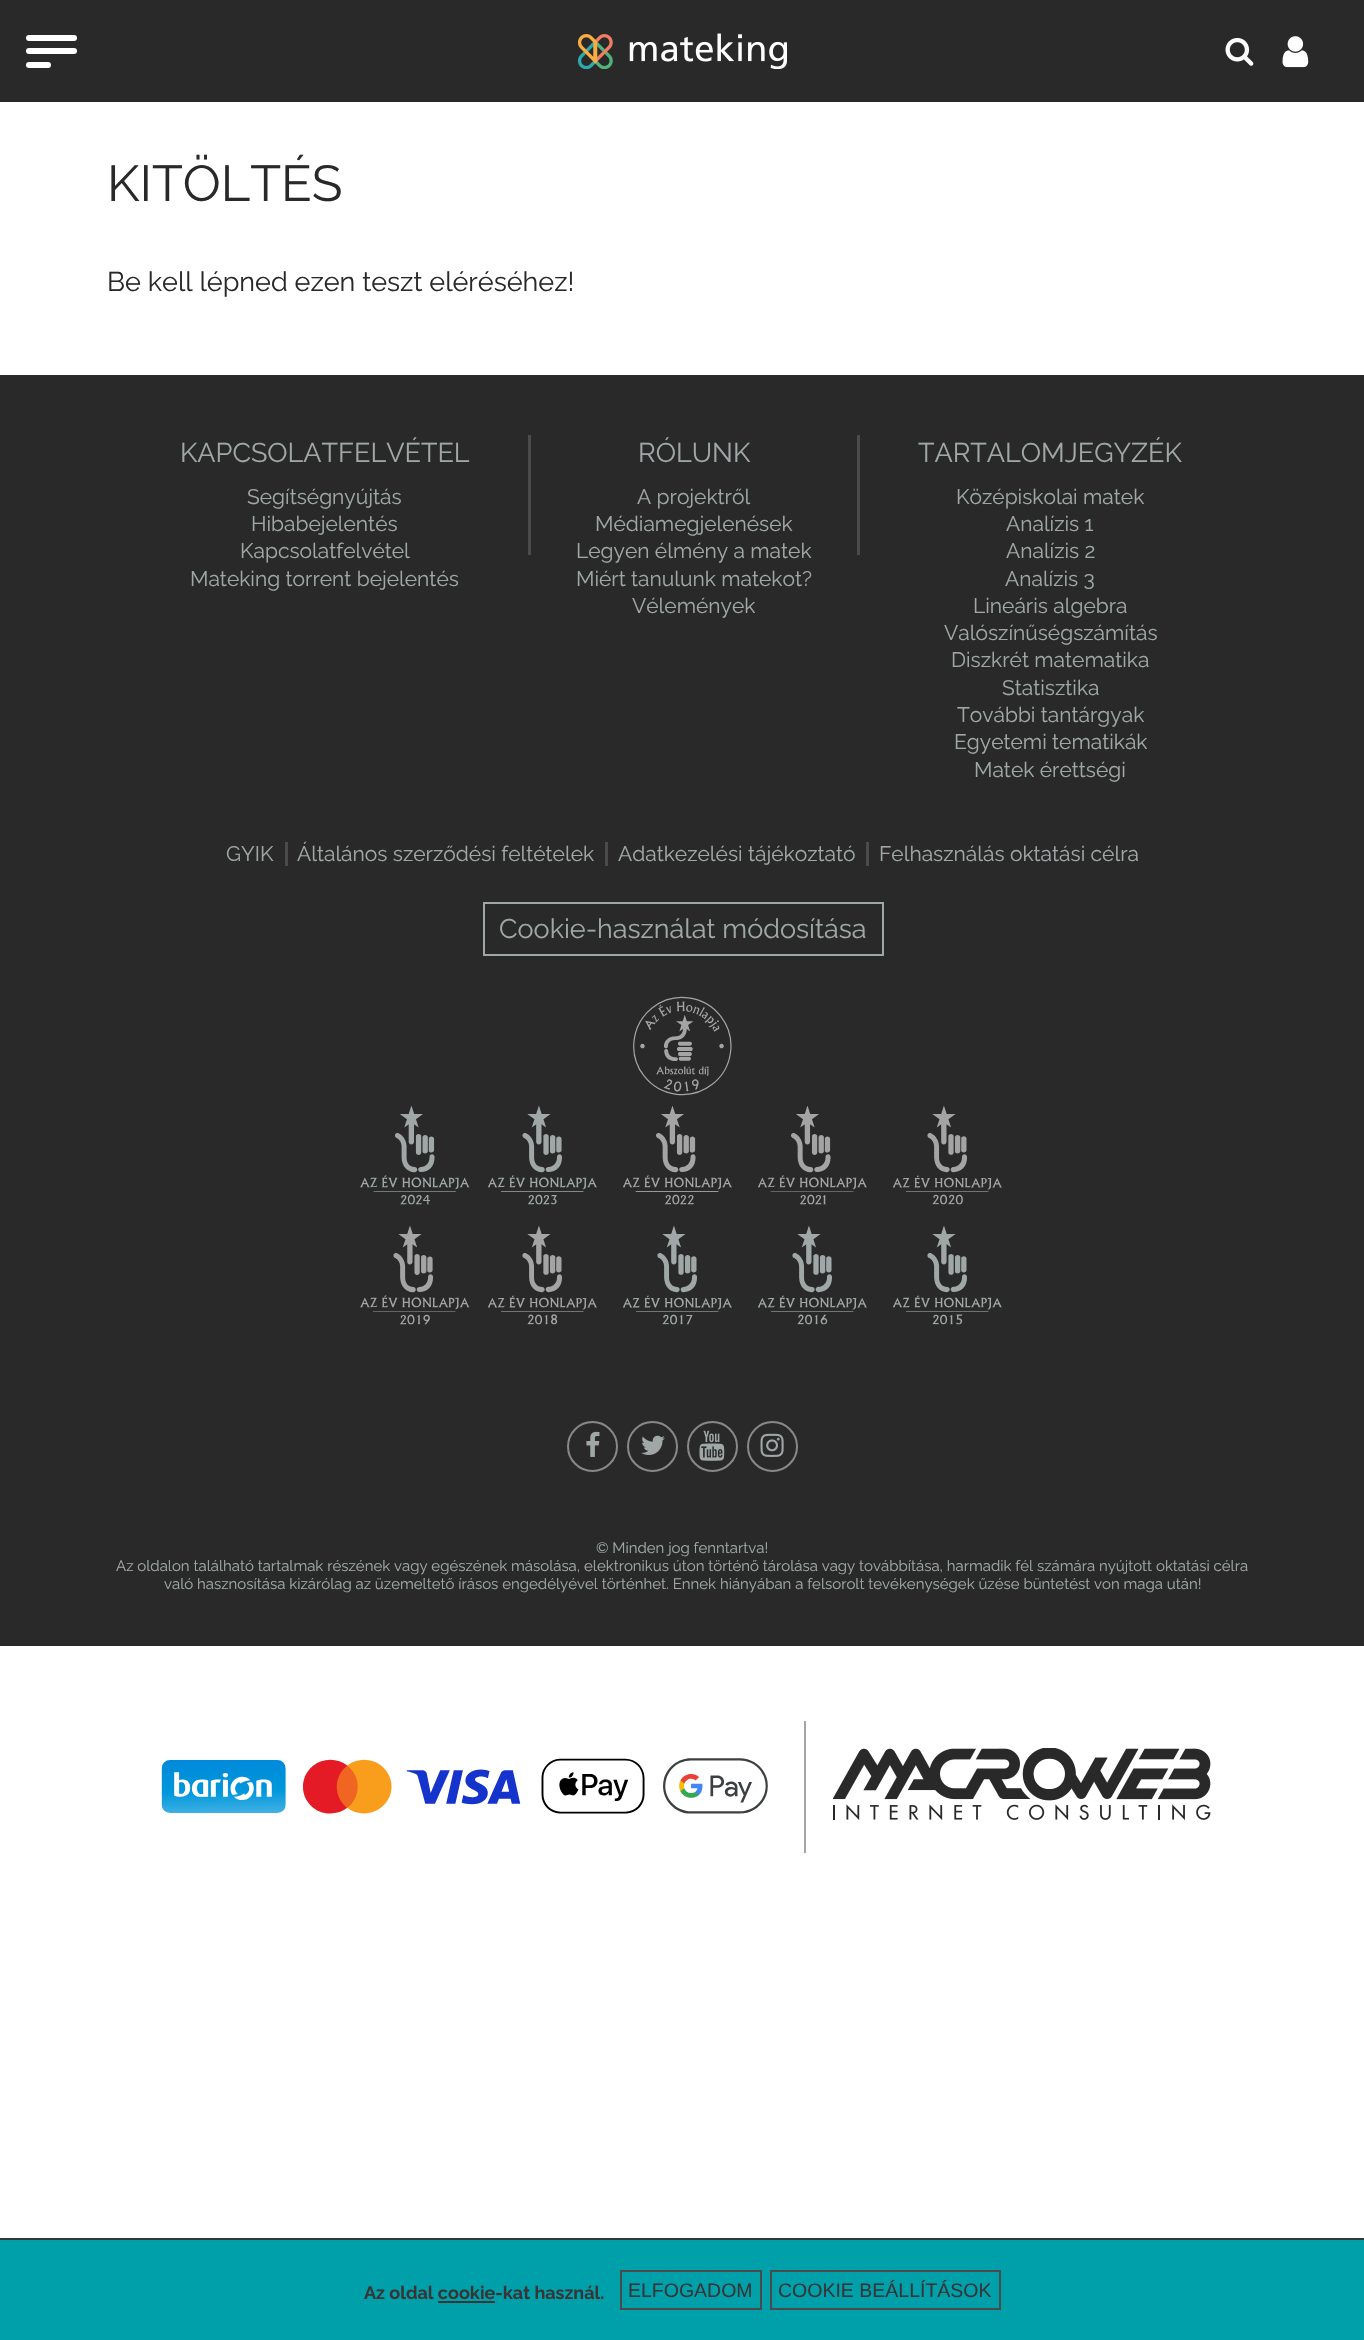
#include "include/core/SkBlurTypes.h"
#include "include/core/SkCanvas.h"
#include "include/core/SkData.h"
#include "include/core/SkFont.h"
#include "include/core/SkFontMgr.h"
#include "include/core/SkImage.h"
#include "include/core/SkMaskFilter.h"
#include "include/core/SkPaint.h"
#include "include/core/SkPathBuilder.h"
#include "include/core/SkTextBlob.h"
#include "include/effects/SkDashPathEffect.h"
#include "include/effects/SkGradientShader.h"
#include "include/utils/SkParsePath.h"

extern sk_sp<SkFontMgr> fontMgr;

static SkFont font(const char* family, int weight, float size, bool italic = false) {
    SkFontStyle style(weight, SkFontStyle::kNormal_Width,
        italic ? SkFontStyle::kItalic_Slant : SkFontStyle::kUpright_Slant);
    SkFont result(fontMgr->matchFamilyStyle(family, style), size);
    result.setSubpixel(true);
    return result;
}

static void drawLabel(SkCanvas* canvas, const char* s, float x, float y, const SkFont& font, SkColor color) {
    SkPaint ink(SkColor4f::FromColor(color));
    ink.setAntiAlias(true);
    canvas->drawString(s, x, y, font, ink);
}

static void fillRect(SkCanvas* canvas, float x, float y, float w, float h, SkColor color) {
    SkPaint ink(SkColor4f::FromColor(color));
    ink.setAntiAlias(true);
    canvas->drawRect(SkRect::MakeXYWH(x, y, w, h), ink);
}

static void fillRRect(SkCanvas* canvas, float x, float y, float w, float h, float radius, SkColor color) {
    SkPaint ink(SkColor4f::FromColor(color));
    ink.setAntiAlias(true);
    canvas->drawRoundRect(SkRect::MakeXYWH(x, y, w, h), radius, radius, ink);
}

static void drawPhoto(SkCanvas* canvas, const char* path, float x, float y, float w, float h) {
    auto image = SkImages::DeferredFromEncodedData(SkData::MakeFromFileName(path));
    canvas->drawImageRect(image, SkRect::MakeXYWH(x, y, w, h), SkSamplingOptions());
}

void draw(SkCanvas* canvas) {
    SkPaint paint;
    paint.setAntiAlias(true);
    canvas->clear(0xFFFFFFFF);
    fillRect(canvas, 0, 0, 1364, 102, 0xFF292929);
    fillRRect(canvas, 26, 48, 51, 6, 3, 0xFFFFFFFF);
    fillRRect(canvas, 26, 35, 51, 6, 3, 0xFFFFFFFF);
    fillRRect(canvas, 26, 62, 25, 6, 3, 0xFFFFFFFF);
    drawPhoto(canvas, "assets/img1.png", 578, 33, 209, 36);
    drawPhoto(canvas, "assets/img2.png", 1225, 37, 29, 29);
    drawPhoto(canvas, "assets/img3.png", 1282, 36, 27, 32);
    SkFont font1 = font("Raleway", 400, 50.5f);
    drawLabel(canvas, "KITÖLTÉS", 107, 201, font1, 0xFF292929);
    SkFont font2 = font("Raleway", 400, 27);
    drawLabel(canvas, "Be kell lépned ezen teszt eléréséhez!", 107, 291, font2, 0xFF292929);
    fillRect(canvas, 0, 375, 1364, 1271, 0xFF292929);
    drawLabel(canvas, "KAPCSOLATFELVÉTEL", 180, 462, font2, 0xFFA0A7A7);
    SkFont font3 = font("Raleway", 400, 21);
    drawLabel(canvas, "Segítségnyújtás", 247, 504, font3, 0xFFA0A7A7);
    drawLabel(canvas, "Hibabejelentés", 251, 531, font3, 0xFFA0A7A7);
    drawLabel(canvas, "Kapcsolatfelvétel", 240, 558, font3, 0xFFA0A7A7);
    drawLabel(canvas, "Mateking torrent bejelentés", 190, 586, font3, 0xFFA0A7A7);
    fillRect(canvas, 528, 435, 3, 120, 0xFF4B4B4B);
    drawLabel(canvas, "RÓLUNK", 638, 462, font2, 0xFFA0A7A7);
    drawLabel(canvas, "A projektről", 637, 504, font3, 0xFFA0A7A7);
    drawLabel(canvas, "Médiamegjelenések", 595, 531, font3, 0xFFA0A7A7);
    drawLabel(canvas, "Legyen élmény a matek", 576, 558, font3, 0xFFA0A7A7);
    drawLabel(canvas, "Miért tanulunk matekot?", 576, 586, font3, 0xFFA0A7A7);
    drawLabel(canvas, "Vélemények", 632, 613, font3, 0xFFA0A7A7);
    fillRect(canvas, 857, 435, 3, 120, 0xFF4B4B4B);
    drawLabel(canvas, "TARTALOMJEGYZÉK", 918, 462, font2, 0xFFA0A7A7);
    drawLabel(canvas, "Középiskolai matek", 956, 504, font3, 0xFFA0A7A7);
    drawLabel(canvas, "Analízis 1", 1006, 531, font3, 0xFFA0A7A7);
    drawLabel(canvas, "Analízis 2", 1006, 558, font3, 0xFFA0A7A7);
    drawLabel(canvas, "Analízis 3", 1005, 586, font3, 0xFFA0A7A7);
    drawLabel(canvas, "Lineáris algebra", 973, 613, font3, 0xFFA0A7A7);
    drawLabel(canvas, "Valószínűségszámítás", 944, 640, font3, 0xFFA0A7A7);
    drawLabel(canvas, "Diszkrét matematika", 951, 667, font3, 0xFFA0A7A7);
    drawLabel(canvas, "Statisztika", 1002, 695, font3, 0xFFA0A7A7);
    drawLabel(canvas, "További tantárgyak", 957, 722, font3, 0xFFA0A7A7);
    drawLabel(canvas, "Egyetemi tematikák", 954, 749, font3, 0xFFA0A7A7);
    drawLabel(canvas, "Matek érettségi", 974, 777, font3, 0xFFA0A7A7);
    drawLabel(canvas, "GYIK", 226, 861, font3, 0xFFA0A7A7);
    fillRect(canvas, 285, 842, 3, 24, 0xFF4B4B4B);
    drawLabel(canvas, "Általános szerződési feltételek", 297, 861, font3, 0xFFA0A7A7);
    fillRect(canvas, 605, 842, 3, 24, 0xFF4B4B4B);
    drawLabel(canvas, "Adatkezelési tájékoztató", 618, 861, font3, 0xFFA0A7A7);
    fillRect(canvas, 866, 842, 3, 24, 0xFF4B4B4B);
    drawLabel(canvas, "Felhasználás oktatási célra", 879, 861, font3, 0xFFA0A7A7);
    paint.setStroke(true);
    paint.setStrokeWidth(2);
    paint.setColor(0xFFA0A7A7);
    canvas->drawRect(SkRect::MakeXYWH(484, 903, 399, 52), paint);
    drawLabel(canvas, "Cookie-használat módosítása", 499, 938, font2, 0xFFA0A7A7);
    drawPhoto(canvas, "assets/img4.png", 360, 996, 642, 329);
    paint.setColor(0xFF888888);
    canvas->drawCircle(592.5f, 1446.5f, 24.5f, paint);
    drawPhoto(canvas, "assets/img5.png", 586, 1431, 14, 26);
    canvas->drawCircle(652.5f, 1446.5f, 24.5f, paint);
    drawPhoto(canvas, "assets/img6.png", 641, 1435, 24, 20);
    canvas->drawCircle(712.5f, 1446.5f, 24.5f, paint);
    drawPhoto(canvas, "assets/img7.png", 699, 1430, 26, 31);
    canvas->drawCircle(772.5f, 1446.5f, 24.5f, paint);
    drawPhoto(canvas, "assets/img8.png", 760, 1433, 24, 24);
    SkFont font4 = font("Raleway", 400, 15);
    drawLabel(canvas, "© Minden jog fenntartva!", 596, 1553, font4, 0xFFA0A7A7);
    drawLabel(canvas, "Az oldalon található tartalmak részének vagy egészének másolása, elektronikus úton történő tárolása vagy továbbítása, harmadik fél számára nyújtott oktatási célra", 116, 1571, font4, 0xFFA0A7A7);
    drawLabel(canvas, "való hasznosítása kizárólag az üzemeltető írásos engedélyével történhet. Ennek hiányában a felsorolt tevékenységek űzése büntetést von maga után!", 164, 1589, font4, 0xFFA0A7A7);
    drawPhoto(canvas, "assets/img9.png", 161, 1758, 607, 56);
    fillRect(canvas, 804, 1721, 2, 132, 0xFFA5A5A5);
    drawPhoto(canvas, "assets/img10.png", 833, 1748, 378, 72);
    fillRect(canvas, 0, 2240, 1364, 100, 0xFF00A0AA);
    fillRect(canvas, 0, 2238, 1364, 2, 0xFF373536);
    SkFont font5 = font("Raleway", 700, 18);
    drawLabel(canvas, "Az oldal cookie-kat használ.", 364, 2299, font5, 0xFF373536);
    fillRect(canvas, 438, 2301, 57, 2, 0xFF373536);
    paint.setColor(0xFF4B4B4B);
    canvas->drawRect(SkRect::MakeXYWH(621, 2271, 140, 38), paint);
    SkFont font6 = font("Liberation Sans", 400, 19.5f);
    drawLabel(canvas, "ELFOGADOM", 628, 2297, font6, 0xFF373536);
    canvas->drawRect(SkRect::MakeXYWH(771, 2271, 229, 38), paint);
    drawLabel(canvas, "COOKIE BEÁLLÍTÁSOK", 778, 2297, font6, 0xFF373536);
}
